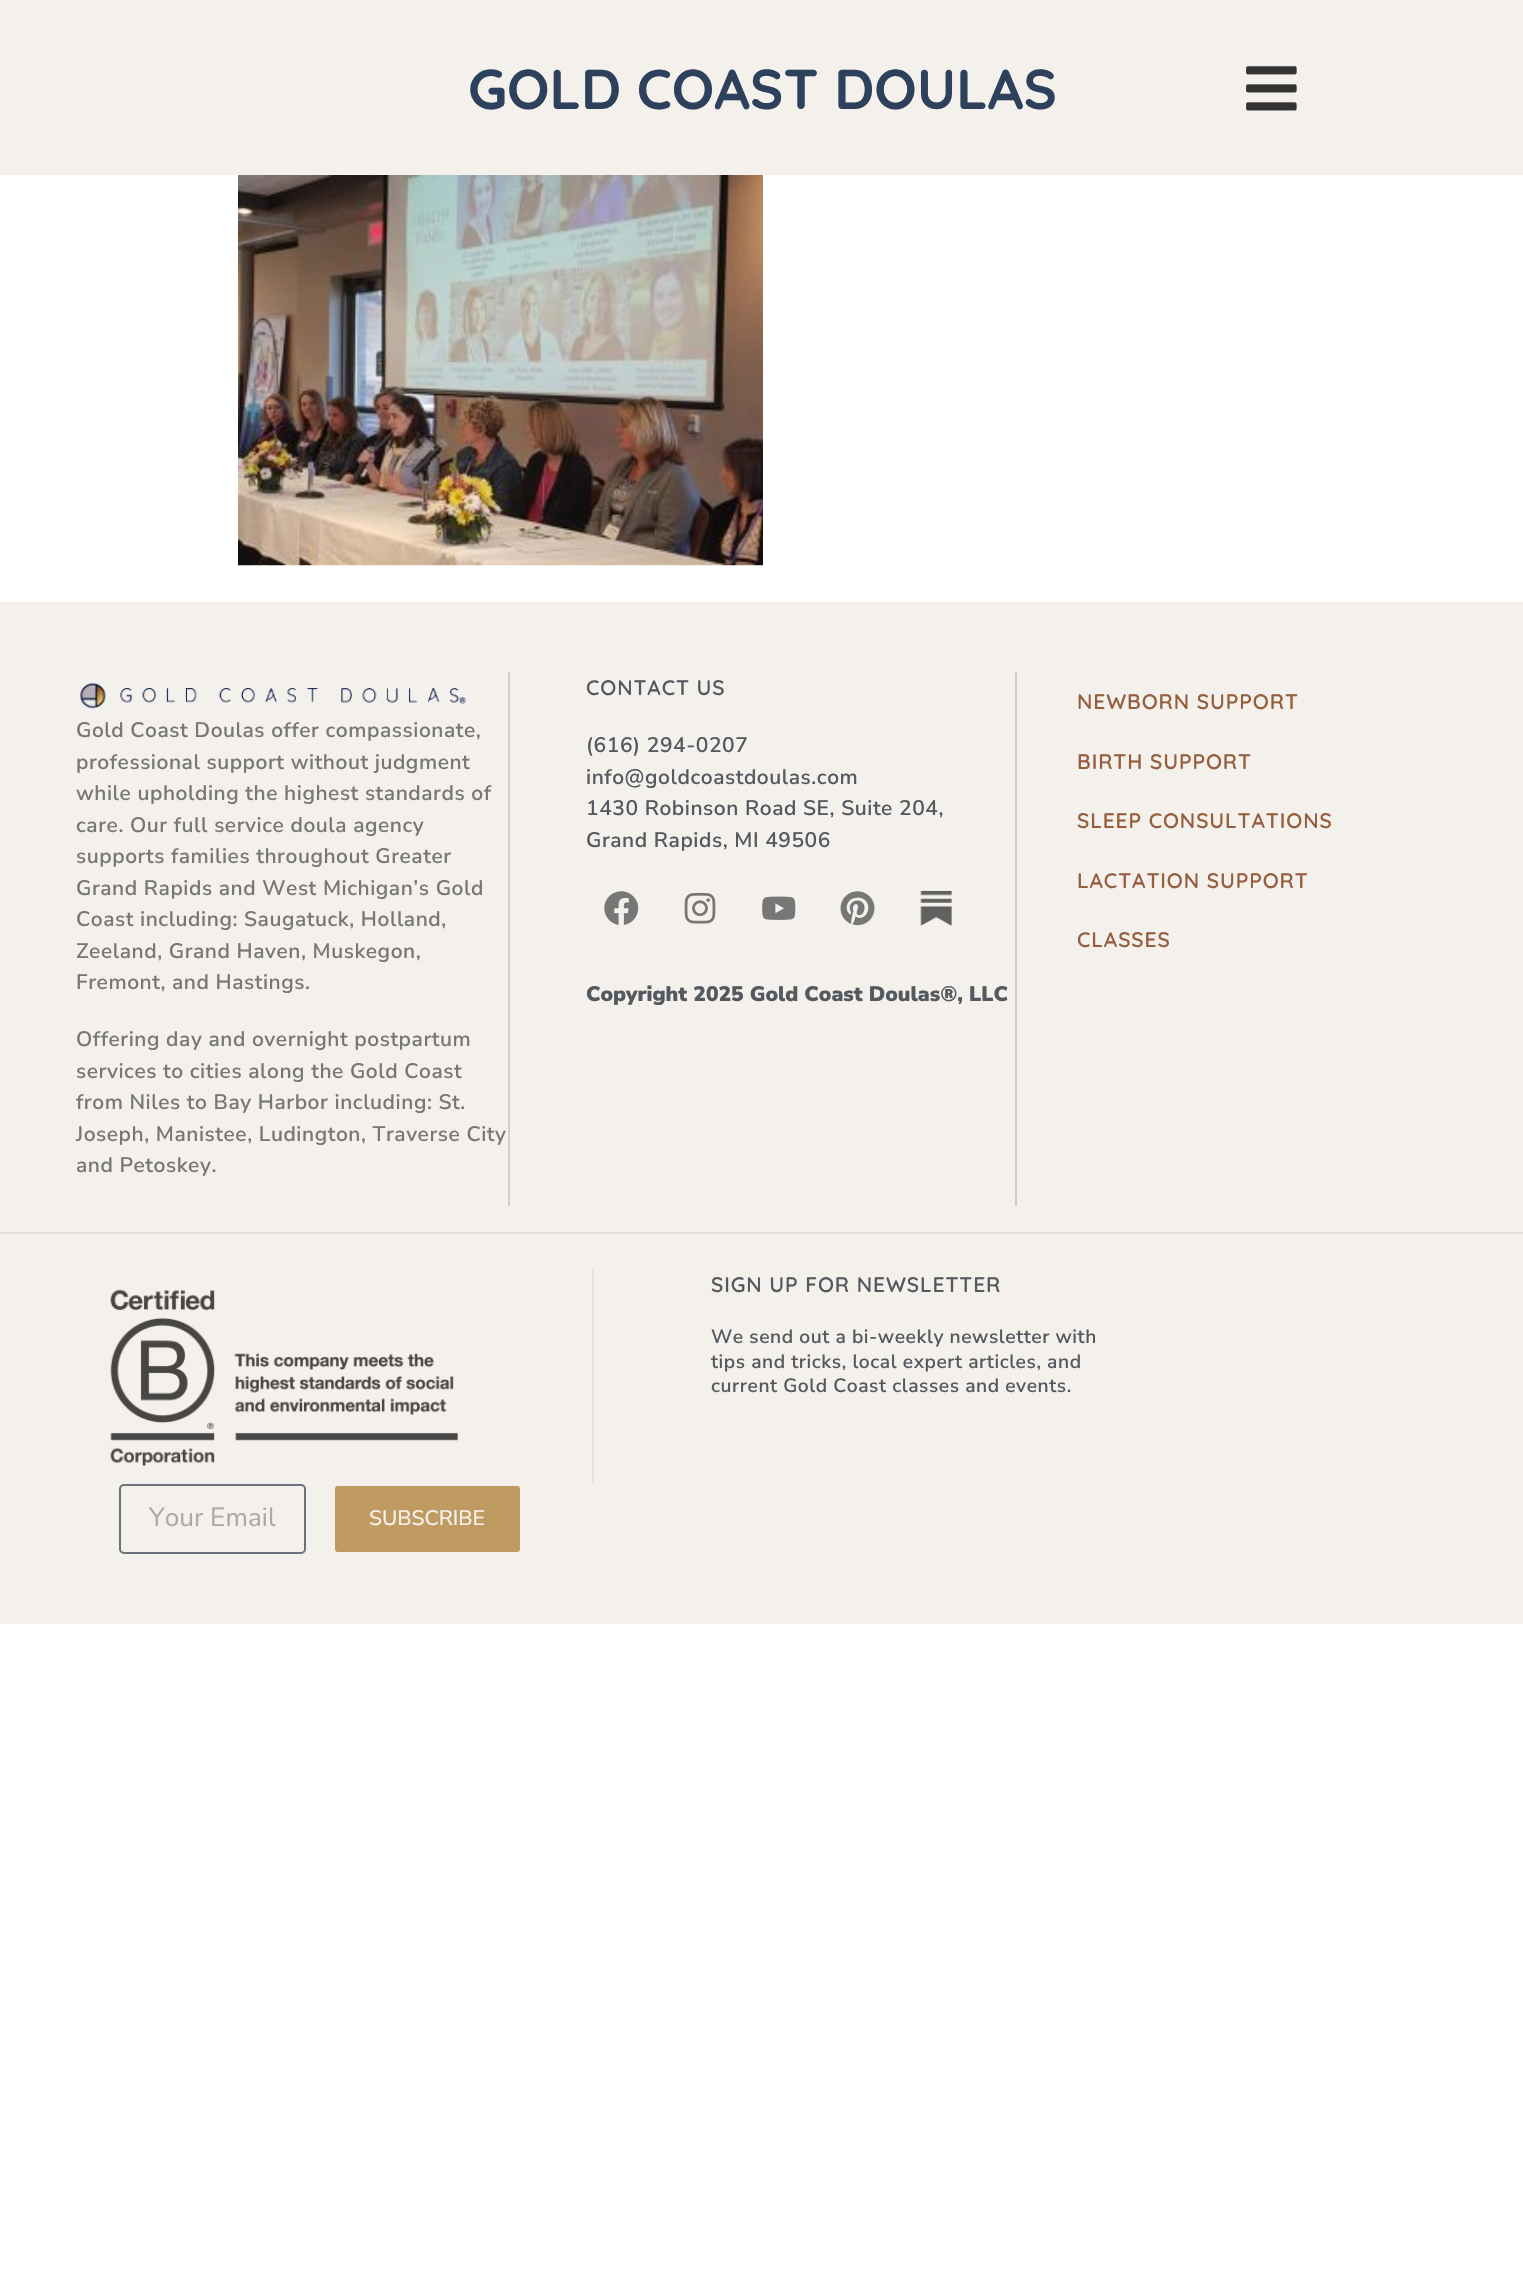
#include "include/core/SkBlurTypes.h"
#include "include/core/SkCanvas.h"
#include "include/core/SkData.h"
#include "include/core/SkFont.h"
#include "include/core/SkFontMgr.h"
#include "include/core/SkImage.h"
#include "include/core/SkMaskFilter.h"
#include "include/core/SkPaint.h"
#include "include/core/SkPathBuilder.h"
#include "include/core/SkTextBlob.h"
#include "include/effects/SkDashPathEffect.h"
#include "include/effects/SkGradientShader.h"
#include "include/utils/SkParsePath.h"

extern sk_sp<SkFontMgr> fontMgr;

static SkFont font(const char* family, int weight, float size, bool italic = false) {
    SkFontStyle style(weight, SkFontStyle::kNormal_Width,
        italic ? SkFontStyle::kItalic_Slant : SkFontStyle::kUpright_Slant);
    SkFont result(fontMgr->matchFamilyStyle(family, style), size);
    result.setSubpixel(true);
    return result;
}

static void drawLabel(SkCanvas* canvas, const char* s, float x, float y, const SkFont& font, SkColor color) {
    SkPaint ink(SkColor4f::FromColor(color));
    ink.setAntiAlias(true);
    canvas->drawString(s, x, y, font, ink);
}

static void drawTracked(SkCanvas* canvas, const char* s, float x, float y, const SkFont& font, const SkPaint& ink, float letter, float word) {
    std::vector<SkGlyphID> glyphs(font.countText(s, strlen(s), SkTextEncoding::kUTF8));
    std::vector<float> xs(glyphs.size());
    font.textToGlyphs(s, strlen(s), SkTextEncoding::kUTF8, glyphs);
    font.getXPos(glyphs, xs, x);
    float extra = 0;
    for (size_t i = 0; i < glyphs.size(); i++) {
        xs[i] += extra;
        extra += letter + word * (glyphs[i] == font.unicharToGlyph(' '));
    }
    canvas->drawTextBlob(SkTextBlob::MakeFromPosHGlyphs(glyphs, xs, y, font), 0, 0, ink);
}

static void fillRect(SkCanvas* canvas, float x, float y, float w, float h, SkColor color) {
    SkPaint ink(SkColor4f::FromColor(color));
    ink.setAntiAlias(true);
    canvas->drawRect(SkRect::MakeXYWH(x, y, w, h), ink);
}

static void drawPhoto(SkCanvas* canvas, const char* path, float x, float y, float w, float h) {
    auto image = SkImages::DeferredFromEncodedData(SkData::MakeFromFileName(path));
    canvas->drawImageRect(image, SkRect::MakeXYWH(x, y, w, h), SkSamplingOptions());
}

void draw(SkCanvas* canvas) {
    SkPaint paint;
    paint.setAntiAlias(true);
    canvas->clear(0xFFFFFFFF);
    fillRect(canvas, 0, 0, 1523, 175, 0xFFF4F0EB);
    SkFont font1 = font("Quicksand", 700, 56);
    drawLabel(canvas, "GOLD COAST DOULAS", 468, 109, font1, 0xFF2D405C);
    drawPhoto(canvas, "assets/img1.png", 1246, 66, 51, 45);
    drawPhoto(canvas, "assets/img2.png", 238, 175, 525, 391);
    fillRect(canvas, 0, 602, 1523, 1022, 0xFFF4F0EB);
    fillRect(canvas, 0, 1232, 1523, 2, 0xFFE4E2E0);
    drawPhoto(canvas, "assets/img3.png", 79, 682, 388, 27);
    SkFont font2 = font("Nunito Sans", 600, 21);
    paint.setColor(0xFF777777);
    drawTracked(canvas, "Gold Coast Doulas offer compassionate,", 76, 737, font2, paint, 0.55f, 0);
    drawTracked(canvas, "professional support without judgment", 76, 769, font2, paint, 0.55f, 0);
    drawTracked(canvas, "while upholding the highest standards of", 76, 800, font2, paint, 0.55f, 0);
    drawTracked(canvas, "care. Our full service doula agency", 76, 832, font2, paint, 0.55f, 0);
    drawTracked(canvas, "supports families throughout Greater", 76, 863, font2, paint, 0.55f, 0);
    drawTracked(canvas, "Grand Rapids and West Michigan’s Gold", 76, 895, font2, paint, 0.55f, 0);
    drawTracked(canvas, "Coast including: Saugatuck, Holland,", 76, 926, font2, paint, 0.55f, 0);
    drawTracked(canvas, "Zeeland, Grand Haven, Muskegon,", 76, 958, font2, paint, 0.55f, 0);
    drawTracked(canvas, "Fremont, and Hastings.", 76, 989, font2, paint, 0.55f, 0);
    drawTracked(canvas, "Offering day and overnight postpartum", 76, 1046, font2, paint, 0.55f, 0);
    drawTracked(canvas, "services to cities along the Gold Coast", 76, 1078, font2, paint, 0.55f, 0);
    drawTracked(canvas, "from Niles to Bay Harbor including: St.", 76, 1109, font2, paint, 0.55f, 0);
    drawTracked(canvas, "Joseph, Manistee, Ludington, Traverse City", 76, 1141, font2, paint, 0.55f, 0);
    drawTracked(canvas, "and Petoskey.", 76, 1172, font2, paint, 0.55f, 0);
    fillRect(canvas, 1015, 672, 2, 534, 0xFFD2CFCC);
    fillRect(canvas, 508, 672, 2, 534, 0xFFD2CFCC);
    SkFont font3 = font("Quicksand", 600, 21);
    paint.setColor(0xFF54595F);
    drawTracked(canvas, "CONTACT US", 586, 695, font3, paint, 0.9f, 0);
    drawTracked(canvas, "(616) 294-0207", 586, 752, font2, paint, 0.55f, 0);
    drawTracked(canvas, "info@goldcoastdoulas.com", 586, 784, font2, paint, 0.55f, 0);
    drawTracked(canvas, "1430 Robinson Road SE, Suite 204,", 586, 815, font2, paint, 0.55f, 0);
    drawTracked(canvas, "Grand Rapids, MI 49506", 586, 847, font2, paint, 0.55f, 0);
    drawPhoto(canvas, "assets/img4.png", 604, 891, 35, 34);
    drawPhoto(canvas, "assets/img5.png", 684, 892, 32, 32);
    drawPhoto(canvas, "assets/img6.png", 762, 896, 34, 24);
    drawPhoto(canvas, "assets/img7.png", 840, 891, 35, 35);
    drawPhoto(canvas, "assets/img8.png", 920, 890, 32, 36);
    SkFont font4 = font("Nunito Sans", 900, 21);
    drawLabel(canvas, "Copyright 2025 Gold Coast Doulas®, LLC", 586, 1001, font4, 0xFF54595F);
    paint.setColor(0xFF955E3E);
    drawTracked(canvas, "NEWBORN SUPPORT", 1077, 709, font3, paint, 0.9f, 0);
    drawTracked(canvas, "BIRTH SUPPORT", 1077, 769, font3, paint, 0.9f, 0);
    drawTracked(canvas, "SLEEP CONSULTATIONS", 1077, 828, font3, paint, 0.9f, 0);
    drawTracked(canvas, "LACTATION SUPPORT", 1077, 888, font3, paint, 0.9f, 0);
    drawTracked(canvas, "CLASSES", 1077, 947, font3, paint, 0.9f, 0);
    drawPhoto(canvas, "assets/img9.png", 110, 1289, 349, 178);
    fillRect(canvas, 592, 1269, 2, 215, 0xFFE4E2E0);
    paint.setColor(0xFF54595F);
    drawTracked(canvas, "SIGN UP FOR NEWSLETTER", 711, 1292, font3, paint, 0.9f, 0);
    SkFont font5 = font("Nunito Sans", 600, 19.25f);
    drawTracked(canvas, "We send out a bi-weekly newsletter with", 711, 1343, font5, paint, 0.55f, 0);
    drawTracked(canvas, "tips and tricks, local expert articles, and", 711, 1368, font5, paint, 0.55f, 0);
    drawTracked(canvas, "current Gold Coast classes and events.", 711, 1392, font5, paint, 0.55f, 0);
    paint.setStroke(true);
    paint.setStrokeWidth(2);
    paint.setColor(0xFF69727D);
    canvas->drawRoundRect(SkRect::MakeXYWH(120, 1485, 185, 68), 4, 4, paint);
    SkFont font6 = font("Nunito Sans", 400, 26.25f);
    drawLabel(canvas, "Your Email", 149, 1526, font6, 0xFFABA9A7);
    paint.setStroke(false);
    paint.setColor(0xFFBF9A61);
    canvas->drawRoundRect(SkRect::MakeXYWH(334, 1485, 187, 68), 4, 4, paint);
    paint.setStroke(true);
    paint.setColor(0xFFF4F0EB);
    canvas->drawRoundRect(SkRect::MakeXYWH(334, 1485, 187, 68), 4, 4, paint);
    SkFont font7 = font("Nunito Sans", 500, 21);
    drawLabel(canvas, "SUBSCRIBE", 369, 1525, font7, 0xFFF4F0EB);
}
